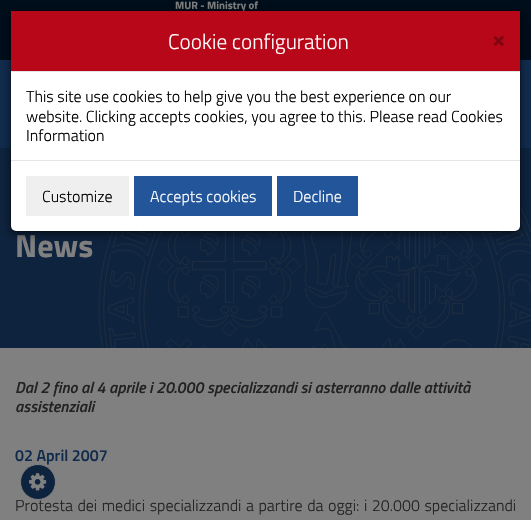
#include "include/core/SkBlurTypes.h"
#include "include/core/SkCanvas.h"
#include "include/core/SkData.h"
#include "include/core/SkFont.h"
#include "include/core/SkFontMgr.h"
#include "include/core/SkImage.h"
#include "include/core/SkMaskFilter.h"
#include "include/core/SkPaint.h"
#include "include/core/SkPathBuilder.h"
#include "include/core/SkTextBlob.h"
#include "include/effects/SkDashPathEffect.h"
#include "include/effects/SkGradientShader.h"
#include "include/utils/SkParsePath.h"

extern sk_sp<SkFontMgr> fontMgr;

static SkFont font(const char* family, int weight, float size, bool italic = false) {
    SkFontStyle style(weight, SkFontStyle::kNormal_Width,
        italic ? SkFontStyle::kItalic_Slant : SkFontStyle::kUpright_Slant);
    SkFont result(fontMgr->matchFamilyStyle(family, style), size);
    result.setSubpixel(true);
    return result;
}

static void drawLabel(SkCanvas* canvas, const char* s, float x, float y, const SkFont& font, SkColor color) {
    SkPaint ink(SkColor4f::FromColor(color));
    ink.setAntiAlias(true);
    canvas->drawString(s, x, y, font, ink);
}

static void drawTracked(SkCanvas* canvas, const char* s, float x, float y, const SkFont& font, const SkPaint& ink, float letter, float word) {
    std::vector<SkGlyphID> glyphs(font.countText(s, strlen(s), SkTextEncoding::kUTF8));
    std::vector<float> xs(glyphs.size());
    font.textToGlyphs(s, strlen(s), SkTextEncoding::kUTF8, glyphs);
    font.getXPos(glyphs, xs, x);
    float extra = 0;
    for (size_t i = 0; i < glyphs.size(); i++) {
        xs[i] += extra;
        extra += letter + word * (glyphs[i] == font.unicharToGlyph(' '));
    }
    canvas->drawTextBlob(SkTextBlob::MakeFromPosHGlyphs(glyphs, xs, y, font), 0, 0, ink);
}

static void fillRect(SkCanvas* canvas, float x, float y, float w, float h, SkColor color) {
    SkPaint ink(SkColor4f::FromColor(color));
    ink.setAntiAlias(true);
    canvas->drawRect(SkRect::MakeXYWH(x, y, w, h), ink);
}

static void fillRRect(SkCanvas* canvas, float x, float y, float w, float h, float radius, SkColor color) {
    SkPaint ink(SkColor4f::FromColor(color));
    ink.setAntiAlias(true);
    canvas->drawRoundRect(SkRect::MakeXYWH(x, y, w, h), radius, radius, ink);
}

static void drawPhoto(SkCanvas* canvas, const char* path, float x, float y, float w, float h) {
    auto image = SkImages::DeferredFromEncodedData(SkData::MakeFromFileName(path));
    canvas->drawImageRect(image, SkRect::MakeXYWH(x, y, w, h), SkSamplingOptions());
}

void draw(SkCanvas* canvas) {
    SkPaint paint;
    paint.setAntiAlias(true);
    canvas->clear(0xFF808080);
    fillRect(canvas, 0, 60, 531, 88, 0xFF112B4D);
    fillRect(canvas, 0, 0, 531, 60, 0xFF000D1A);
    SkFont font1 = font("Titillium Web", 700, 10.75f);
    drawLabel(canvas, "MUR - Ministry of", 175, 9, font1, 0xFF808080);
    fillRect(canvas, 0, 148, 531, 200, 0xFF0E233E);
    drawPhoto(canvas, "assets/img1.png", 98, 206, 433, 142);
    SkFont font2 = font("Titillium Web", 700, 32);
    drawLabel(canvas, "News", 15, 257, font2, 0xFF808080);
    SkFont font3 = font("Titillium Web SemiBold", 600, 16, true);
    drawLabel(canvas, "Dal 2 fino al 4 aprile i 20.000 specializzandi si asterranno dalle attività", 15, 393, font3, 0xFF222222);
    drawLabel(canvas, "assistenziali", 15, 412, font3, 0xFF222222);
    SkFont font4 = font("Titillium Web SemiBold", 600, 16);
    drawLabel(canvas, "02 April 2007", 15, 461, font4, 0xFF112B4D);
    SkFont font5 = font("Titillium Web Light", 300, 16);
    paint.setColor(0xFF222222);
    drawTracked(canvas, "Protesta dei medici specializzandi a partire da oggi: i 20.000 specializzandi", 15, 511, font5, paint, 0, 1);
    paint.setColor(0x80000000);
    paint.setMaskFilter(SkMaskFilter::MakeBlur(kNormal_SkBlurStyle, 4.5f));
    canvas->drawRoundRect(SkRect::MakeXYWH(10, 13, 511, 222), 6, 6, paint);
    paint.setMaskFilter(nullptr);
    fillRRect(canvas, 11, 11, 509, 220, 5, 0xFFFFFFFF);
    paint.setStroke(true);
    paint.setStrokeWidth(1);
    paint.setColor(0x33000000);
    canvas->drawRoundRect(SkRect::MakeXYWH(10.5f, 10.5f, 510, 221), 5.5f, 5.5f, paint);
    fillRect(canvas, 11, 11, 509, 60, 0xFFB70718);
    fillRect(canvas, 11, 71, 509, 1, 0xFFE5E5E5);
    SkFont font6 = font("Titillium Web Light", 300, 21.25f);
    drawLabel(canvas, "Cookie configuration", 168, 49, font6, 0xFFFFFFFF);
    SkFont font7 = font("Titillium Web", 700, 24);
    drawLabel(canvas, "×", 492, 47, font7, 0xFF800511);
    drawLabel(canvas, "This site use cookies to help give you the best experience on our", 26, 102, font5, 0xFF000000);
    drawLabel(canvas, "website. Clicking accepts cookies, you agree to this. Please read Cookies", 26, 122, font5, 0xFF000000);
    drawLabel(canvas, "Information", 26, 141, font5, 0xFF000000);
    fillRect(canvas, 11, 160, 509, 1, 0xFFE5E5E5);
    fillRect(canvas, 26, 176, 103, 40, 0xFFEFEFEF);
    drawLabel(canvas, "Customize", 42, 202, font5, 0xFF000000);
    fillRect(canvas, 134, 176, 138, 40, 0xFF225599);
    drawLabel(canvas, "Accepts cookies", 150, 202, font5, 0xFFFFFFFF);
    fillRect(canvas, 277, 176, 81, 40, 0xFF225599);
    drawLabel(canvas, "Decline", 293, 202, font5, 0xFFFFFFFF);
    paint.setStroke(false);
    paint.setColor(0xFF0E233E);
    canvas->drawCircle(38, 482, 17.5f, paint);
    paint.setStroke(true);
    paint.setColor(0xFF808080);
    canvas->drawCircle(38, 482, 17.5f, paint);
    drawPhoto(canvas, "assets/img2.png", 29, 473, 18, 18);
}
